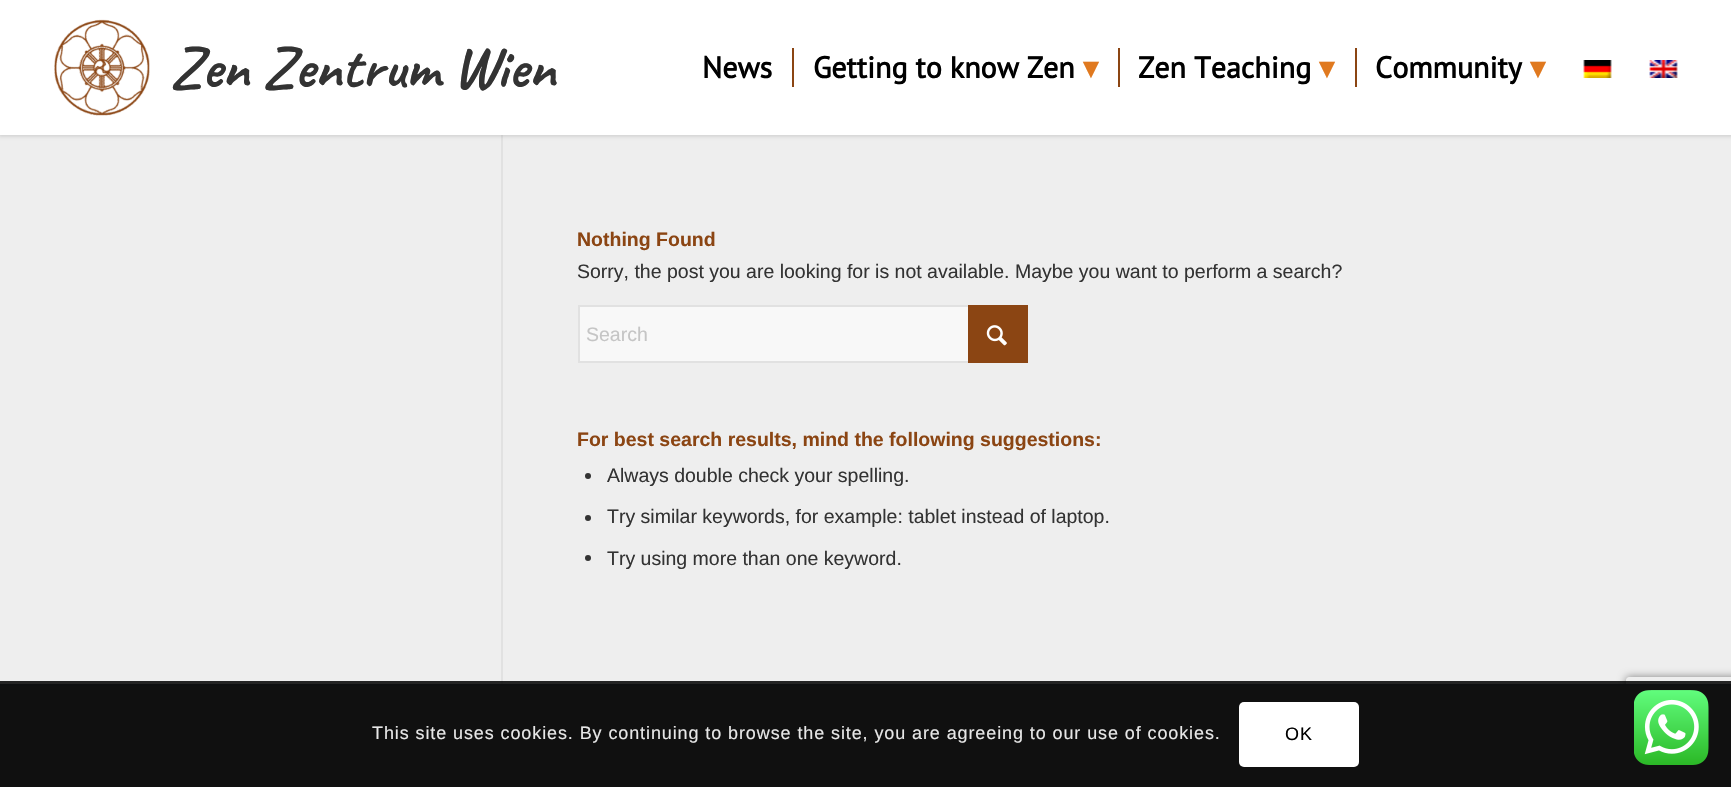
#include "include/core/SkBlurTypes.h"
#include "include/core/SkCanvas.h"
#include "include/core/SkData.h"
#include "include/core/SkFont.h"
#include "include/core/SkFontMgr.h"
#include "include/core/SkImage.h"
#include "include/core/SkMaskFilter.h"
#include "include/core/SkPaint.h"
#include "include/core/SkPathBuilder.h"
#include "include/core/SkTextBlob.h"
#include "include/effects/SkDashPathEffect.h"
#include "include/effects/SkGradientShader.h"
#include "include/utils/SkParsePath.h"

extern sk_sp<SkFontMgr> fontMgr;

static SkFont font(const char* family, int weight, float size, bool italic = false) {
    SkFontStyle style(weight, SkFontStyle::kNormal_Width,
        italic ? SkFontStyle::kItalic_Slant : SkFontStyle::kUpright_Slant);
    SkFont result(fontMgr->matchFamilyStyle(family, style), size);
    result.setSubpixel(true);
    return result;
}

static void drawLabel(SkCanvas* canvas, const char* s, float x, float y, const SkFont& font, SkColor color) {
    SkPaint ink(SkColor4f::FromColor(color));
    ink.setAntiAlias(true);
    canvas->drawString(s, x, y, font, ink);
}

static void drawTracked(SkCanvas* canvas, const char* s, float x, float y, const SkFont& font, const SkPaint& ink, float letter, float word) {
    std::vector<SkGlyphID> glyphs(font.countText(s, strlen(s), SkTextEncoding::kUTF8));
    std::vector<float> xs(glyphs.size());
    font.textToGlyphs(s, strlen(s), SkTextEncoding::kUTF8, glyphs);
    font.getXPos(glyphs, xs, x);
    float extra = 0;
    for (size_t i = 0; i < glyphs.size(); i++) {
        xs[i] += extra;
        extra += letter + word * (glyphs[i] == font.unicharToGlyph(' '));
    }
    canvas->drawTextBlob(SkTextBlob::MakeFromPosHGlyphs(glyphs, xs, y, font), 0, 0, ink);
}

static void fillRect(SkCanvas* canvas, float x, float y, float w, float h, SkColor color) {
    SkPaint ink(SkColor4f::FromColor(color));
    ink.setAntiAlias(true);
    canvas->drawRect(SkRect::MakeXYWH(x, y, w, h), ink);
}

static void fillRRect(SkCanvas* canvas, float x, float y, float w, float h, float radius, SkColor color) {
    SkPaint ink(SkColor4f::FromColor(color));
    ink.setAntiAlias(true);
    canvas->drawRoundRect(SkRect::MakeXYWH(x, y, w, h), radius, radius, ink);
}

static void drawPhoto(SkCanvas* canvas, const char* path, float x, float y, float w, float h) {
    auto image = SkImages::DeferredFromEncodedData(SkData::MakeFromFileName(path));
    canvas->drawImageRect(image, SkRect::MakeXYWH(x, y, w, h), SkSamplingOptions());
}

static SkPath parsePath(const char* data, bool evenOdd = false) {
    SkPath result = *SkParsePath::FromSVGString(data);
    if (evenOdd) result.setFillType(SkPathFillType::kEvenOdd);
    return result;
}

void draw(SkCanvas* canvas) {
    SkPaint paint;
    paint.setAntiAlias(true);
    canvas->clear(0xFFEEEEEE);
    fillRect(canvas, 501, 132, 2, 552, 0xFFE1E1E1);
    paint.setColor(0x1A000000);
    paint.setMaskFilter(SkMaskFilter::MakeBlur(kNormal_SkBlurStyle, 1.5f));
    canvas->drawRect(SkRect::MakeXYWH(-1, -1, 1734, 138), paint);
    paint.setMaskFilter(nullptr);
    fillRect(canvas, 0, 0, 1731, 135, 0xFFFFFFFF);
    drawPhoto(canvas, "assets/img1.png", 54, 19, 96, 97);
    SkFont font1 = font("Caveat", 700, 60);
    paint.setColor(0xFF333333);
    drawTracked(canvas, "Zen Zentrum Wien", 170, 87, font1, paint, 0, -1);
    SkFont font2 = font("PT Sans", 700, 30);
    drawLabel(canvas, "News", 702, 78, font2, 0xFF000000);
    drawLabel(canvas, "Getting to know Zen", 813, 78, font2, 0xFF000000);
    fillRect(canvas, 792, 48, 2, 39, 0xFF8B4513);
    SkFont font3 = font("DejaVu Sans", 700, 30);
    drawLabel(canvas, "▾", 1083, 78, font3, 0xFFE0791F);
    drawLabel(canvas, "Zen Teaching", 1138, 78, font2, 0xFF000000);
    fillRect(canvas, 1118, 48, 2, 39, 0xFF8B4513);
    drawLabel(canvas, "▾", 1319, 78, font3, 0xFFE0791F);
    drawLabel(canvas, "Community", 1375, 78, font2, 0xFF000000);
    fillRect(canvas, 1355, 48, 2, 39, 0xFF8B4513);
    drawLabel(canvas, "▾", 1530, 78, font3, 0xFFE0791F);
    drawPhoto(canvas, "assets/img2.png", 1583, 60, 29, 18);
    drawPhoto(canvas, "assets/img3.png", 1649, 60, 29, 18);
    SkFont font4 = font("Liberation Sans", 700, 19.5f);
    drawLabel(canvas, "Nothing Found", 577, 246, font4, 0xFF8B4513);
    SkFont font5 = font("Liberation Sans", 400, 19.5f);
    drawLabel(canvas, "Sorry, the post you are looking for is not available. Maybe you want to perform a search?", 577, 278, font5, 0xFF333333);
    fillRect(canvas, 580, 307, 388, 54, 0xFFF8F8F8);
    paint.setStroke(true);
    paint.setStrokeWidth(2);
    paint.setColor(0xFFE1E1E1);
    canvas->drawRect(SkRect::MakeXYWH(579, 306, 448, 56), paint);
    fillRect(canvas, 968, 305, 60, 58, 0xFF8B4513);
    drawLabel(canvas, "Search", 586, 341, font5, 0xFFC5C5C5);
    drawPhoto(canvas, "assets/img4.png", 986, 325, 21, 21);
    drawLabel(canvas, "For best search results, mind the following suggestions:", 577, 446, font4, 0xFF8B4513);
    paint.setStroke(false);
    paint.setColor(0xFF333333);
    canvas->drawCircle(588, 476, 3, paint);
    drawLabel(canvas, "Always double check your spelling.", 607, 482, font5, 0xFF333333);
    canvas->drawCircle(588, 518, 3, paint);
    drawLabel(canvas, "Try similar keywords, for example: tablet instead of laptop.", 607, 523, font5, 0xFF333333);
    canvas->drawCircle(588, 558, 3, paint);
    drawLabel(canvas, "Try using more than one keyword.", 607, 565, font5, 0xFF333333);
    canvas->save();
    canvas->clipPath(parsePath("M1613 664H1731V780H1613ZM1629 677H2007C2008.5 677 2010 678.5 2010 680V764C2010 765.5 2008.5 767 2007 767H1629C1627.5 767 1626 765.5 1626 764V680C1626 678.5 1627.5 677 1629 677Z", true), true);
    paint.setColor(0xFF808080);
    paint.setMaskFilter(SkMaskFilter::MakeBlur(kNormal_SkBlurStyle, 4));
    canvas->drawRoundRect(SkRect::MakeXYWH(1626, 677, 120, 90), 3, 3, paint);
    paint.setMaskFilter(nullptr);
    canvas->restore();
    fillRect(canvas, 0, 686, 1731, 101, 0xFF666666);
    fillRect(canvas, 0, 684, 1731, 2, 0xFF5B646B);
    fillRect(canvas, 0, 681, 1731, 106, 0xD9000000);
    SkFont font6 = font("Liberation Sans", 400, 18);
    paint.setColor(0xFFE7E7E7);
    drawTracked(canvas, "This site uses cookies. By continuing to browse the site, you are agreeing to our use of cookies.", 372, 739, font6, paint, 0.9f, 0);
    fillRRect(canvas, 1239, 702, 120, 65, 5, 0xFFFFFFFF);
    paint.setColor(0xFF000000);
    drawTracked(canvas, "OK", 1285, 740, font6, paint, 0.9f, 0);
    drawPhoto(canvas, "assets/img5.png", 1634, 690, 75, 75);
}
